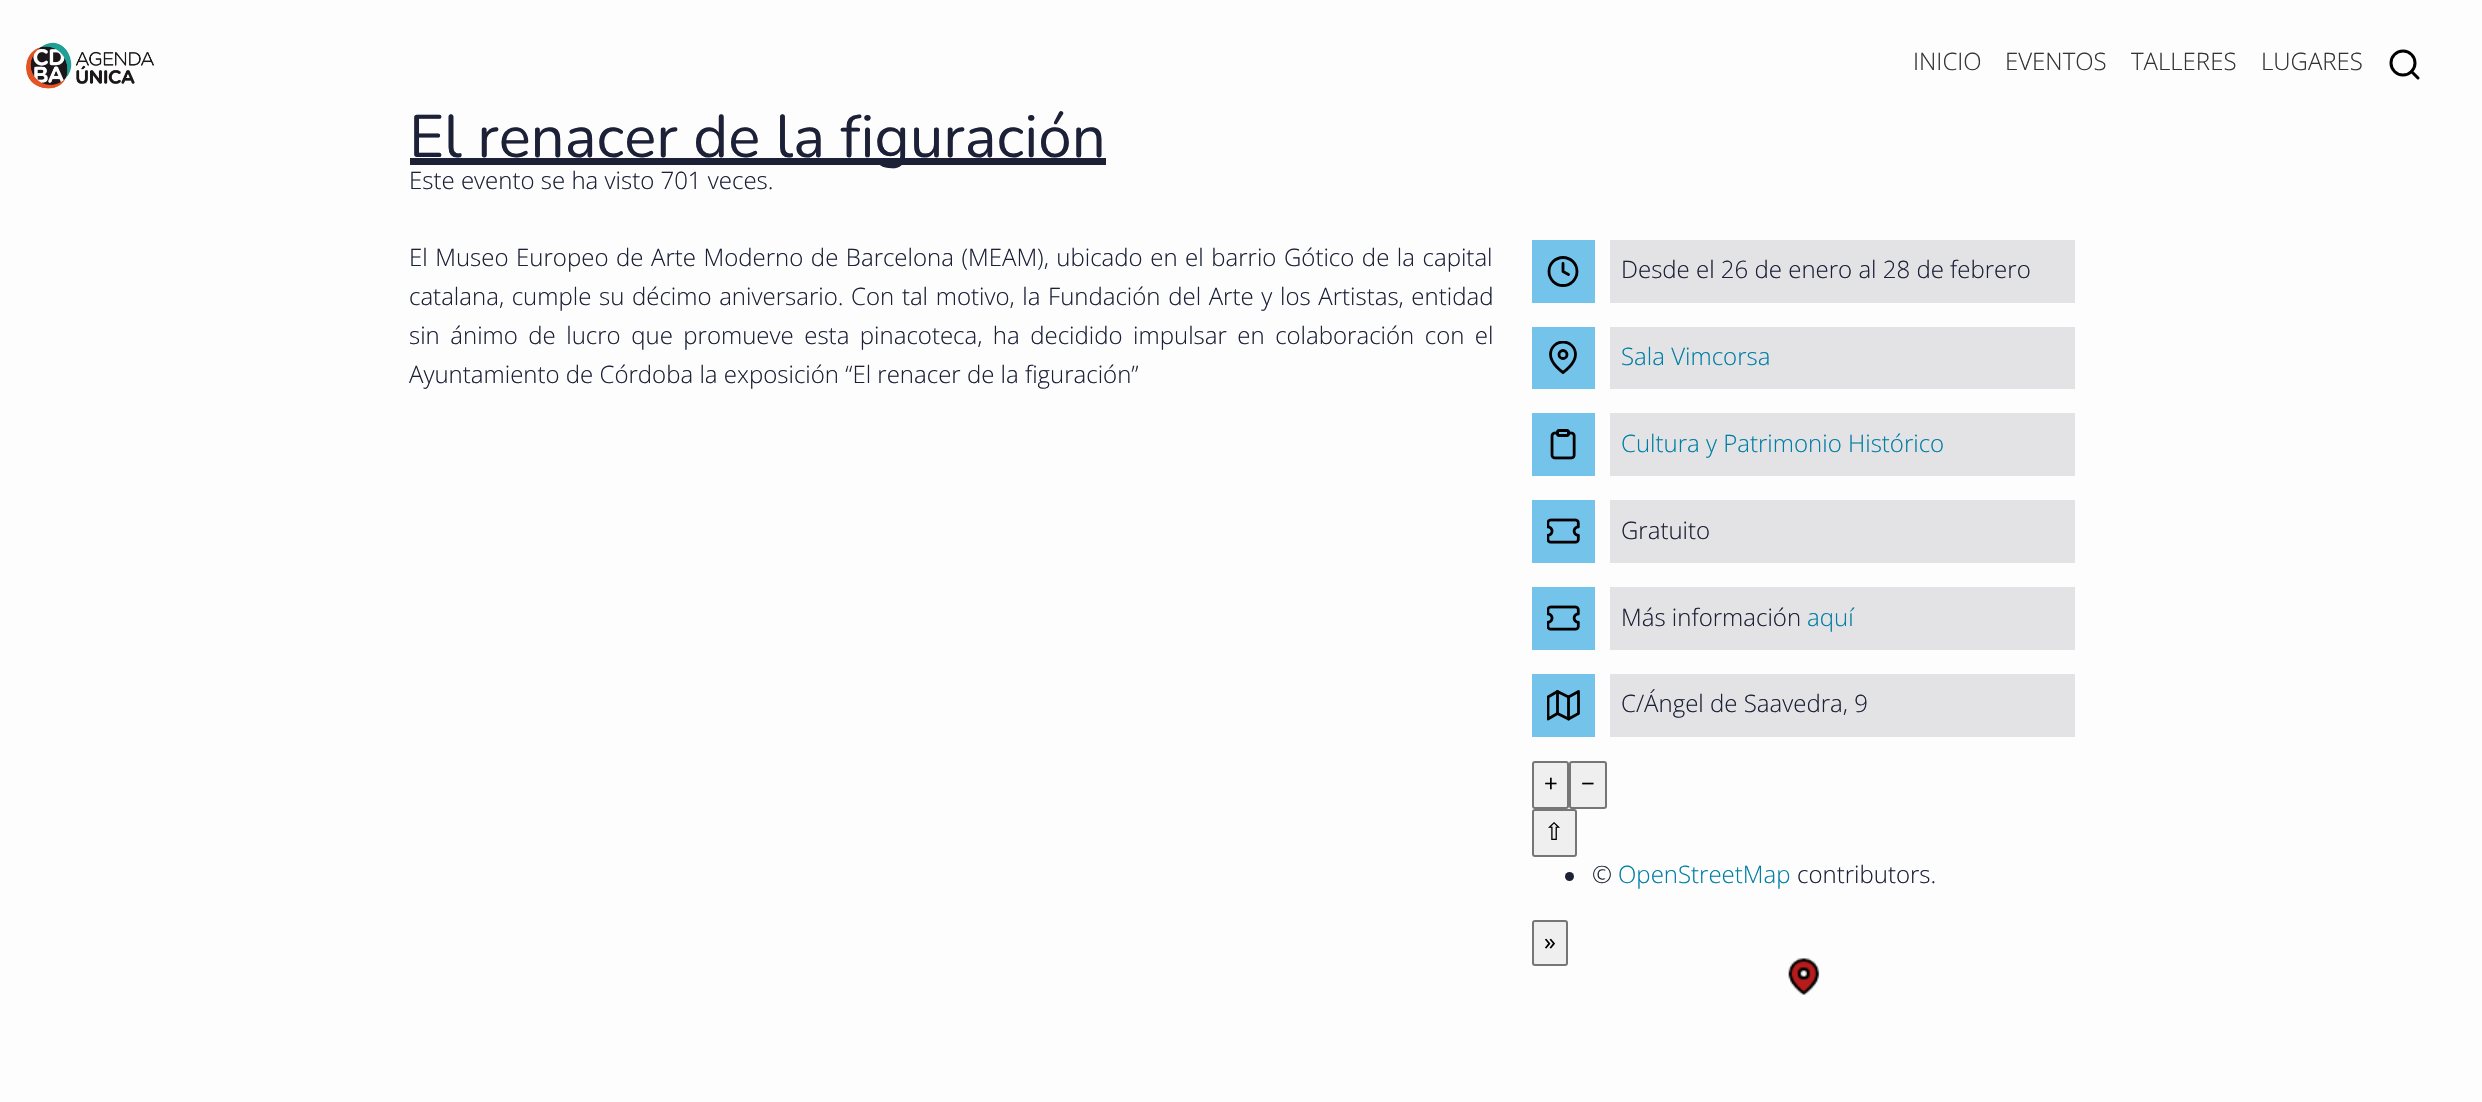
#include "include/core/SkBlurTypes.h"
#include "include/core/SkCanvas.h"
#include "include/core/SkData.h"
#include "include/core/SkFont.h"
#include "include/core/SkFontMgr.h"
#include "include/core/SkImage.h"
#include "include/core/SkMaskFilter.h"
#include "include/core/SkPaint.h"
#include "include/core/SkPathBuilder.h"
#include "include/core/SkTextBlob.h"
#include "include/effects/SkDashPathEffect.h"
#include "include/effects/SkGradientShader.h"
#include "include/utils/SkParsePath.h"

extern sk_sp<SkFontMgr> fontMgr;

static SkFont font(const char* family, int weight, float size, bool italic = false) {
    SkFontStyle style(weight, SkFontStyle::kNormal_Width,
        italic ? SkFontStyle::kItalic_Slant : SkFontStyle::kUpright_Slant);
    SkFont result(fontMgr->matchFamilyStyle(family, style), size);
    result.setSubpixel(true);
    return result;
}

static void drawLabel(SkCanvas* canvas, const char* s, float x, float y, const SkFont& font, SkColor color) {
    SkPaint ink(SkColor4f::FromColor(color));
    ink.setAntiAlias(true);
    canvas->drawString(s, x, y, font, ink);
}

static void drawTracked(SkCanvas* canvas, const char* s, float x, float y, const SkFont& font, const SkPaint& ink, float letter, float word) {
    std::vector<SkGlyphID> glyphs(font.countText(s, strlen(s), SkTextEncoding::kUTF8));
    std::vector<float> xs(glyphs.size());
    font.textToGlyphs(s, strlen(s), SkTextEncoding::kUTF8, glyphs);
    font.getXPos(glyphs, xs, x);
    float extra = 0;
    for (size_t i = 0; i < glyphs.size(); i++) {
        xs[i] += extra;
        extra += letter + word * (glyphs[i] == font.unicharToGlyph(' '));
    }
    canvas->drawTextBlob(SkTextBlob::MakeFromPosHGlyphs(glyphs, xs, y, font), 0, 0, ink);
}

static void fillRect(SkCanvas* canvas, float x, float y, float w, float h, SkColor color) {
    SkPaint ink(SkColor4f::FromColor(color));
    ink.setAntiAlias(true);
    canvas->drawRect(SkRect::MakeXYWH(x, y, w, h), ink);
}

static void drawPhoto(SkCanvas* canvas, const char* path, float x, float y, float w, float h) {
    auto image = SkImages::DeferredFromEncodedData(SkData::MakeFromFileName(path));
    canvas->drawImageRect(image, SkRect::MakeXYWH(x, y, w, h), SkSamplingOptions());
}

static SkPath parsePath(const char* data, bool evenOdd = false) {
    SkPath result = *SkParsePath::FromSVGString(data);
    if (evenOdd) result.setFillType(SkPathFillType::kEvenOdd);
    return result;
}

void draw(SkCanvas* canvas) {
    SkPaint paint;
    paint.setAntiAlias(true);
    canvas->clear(0xFFFDFDFD);
    drawPhoto(canvas, "assets/img1.png", 26, 42, 128, 47);
    SkFont font1 = font("Open Sans", 300, 24);
    drawLabel(canvas, "INICIO", 1913, 70, font1, 0xFF333333);
    drawLabel(canvas, "EVENTOS", 2005, 70, font1, 0xFF333333);
    drawLabel(canvas, "TALLERES", 2131, 70, font1, 0xFF333333);
    drawLabel(canvas, "LUGARES", 2261, 70, font1, 0xFF333333);
    paint.setStroke(true);
    paint.setStrokeWidth(3);
    paint.setColor(0xFF000000);
    canvas->drawCircle(2403, 63, 12, paint);
    paint.setStrokeCap(SkPaint::kRound_Cap);
    paint.setStrokeJoin(SkPaint::kRound_Join);
    canvas->drawPath(parsePath("M2418 78L2411.5 71.5"), paint);
    fillRect(canvas, 410, 158, 696, 7, 0xFF1D2137);
    SkFont font2 = font("Nunito", 200, 60);
    drawLabel(canvas, "El renacer de la figuración", 409, 157, font2, 0xFF1D2137);
    drawLabel(canvas, "Este evento se ha visto 701 veces.", 409, 189, font1, 0xFF1D2137);
    paint.setStroke(false);
    paint.setColor(0xFF1D2137);
    drawTracked(canvas, "El Museo Europeo de Arte Moderno de Barcelona (MEAM), ubicado en el barrio Gótico de la capital", 409, 266, font1, paint, 0, 1.3f);
    drawTracked(canvas, "catalana, cumple su décimo aniversario. Con tal motivo, la Fundación del Arte y los Artistas, entidad", 409, 305, font1, paint, 0, 1.4f);
    drawTracked(canvas, "sin ánimo de lucro que promueve esta pinacoteca, ha decidido impulsar en colaboración con el", 409, 344, font1, paint, 0, 4.25f);
    drawLabel(canvas, "Ayuntamiento de Córdoba la exposición “El renacer de la figuración”", 409, 383, font1, 0xFF1D2137);
    fillRect(canvas, 1532, 240, 63, 63, 0xFF73C3EA);
    paint.setStroke(true);
    paint.setStrokeWidth(2.8f);
    paint.setStrokeCap(SkPaint::kButt_Cap);
    paint.setStrokeJoin(SkPaint::kMiter_Join);
    paint.setColor(0xFF000000);
    canvas->drawCircle(1563, 271.5f, 14, paint);
    paint.setStrokeCap(SkPaint::kRound_Cap);
    paint.setStrokeJoin(SkPaint::kRound_Join);
    canvas->drawPath(parsePath("M1563 263.5V271.5L1568.5 274.5"), paint);
    fillRect(canvas, 1610, 240, 465, 63, 0xFFE3E3E6);
    drawLabel(canvas, "Desde el 26 de enero al 28 de febrero", 1621, 278, font1, 0xFF1D2137);
    fillRect(canvas, 1532, 327, 63, 62, 0xFF73C3EA);
    canvas->save();
    canvas->clipRect(SkRect::MakeXYWH(1547, 341, 33, 34));
    canvas->drawPath(parsePath("M1575.5 354.5C1575.5 364 1563 372.5 1563 372.5C1563 372.5 1550.5 364 1550.5 354.5C1550.5 347.5 1556 342 1563 342C1570 342 1575.5 347.5 1575.5 354.5Z"), paint);
    canvas->restore();
    paint.setStrokeCap(SkPaint::kButt_Cap);
    paint.setStrokeJoin(SkPaint::kMiter_Join);
    canvas->drawCircle(1563, 354.5f, 4, paint);
    fillRect(canvas, 1610, 327, 465, 62, 0xFFE3E3E6);
    drawLabel(canvas, "Sala Vimcorsa", 1621, 365, font1, 0xFF007FA5);
    fillRect(canvas, 1532, 413, 63, 63, 0xFF73C3EA);
    drawPhoto(canvas, "assets/img2.png", 1550, 429, 26, 31);
    fillRect(canvas, 1610, 413, 465, 63, 0xFFE3E3E6);
    drawLabel(canvas, "Cultura y Patrimonio Histórico", 1621, 452, font1, 0xFF007FA5);
    fillRect(canvas, 1532, 500, 63, 63, 0xFF73C3EA);
    drawPhoto(canvas, "assets/img3.png", 1547, 518, 33, 26);
    fillRect(canvas, 1610, 500, 465, 63, 0xFFE3E3E6);
    drawLabel(canvas, "Gratuito", 1621, 539, font1, 0xFF1D2137);
    fillRect(canvas, 1532, 587, 63, 63, 0xFF73C3EA);
    drawPhoto(canvas, "assets/img3.png", 1547, 605, 33, 26);
    fillRect(canvas, 1610, 587, 465, 63, 0xFFE3E3E6);
    drawLabel(canvas, "Más información", 1621, 626, font1, 0xFF1D2137);
    drawLabel(canvas, "aquí", 1807, 626, font1, 0xFF007FA5);
    fillRect(canvas, 1532, 674, 63, 63, 0xFF73C3EA);
    canvas->save();
    canvas->clipRect(SkRect::MakeXYWH(1547, 689, 33, 33));
    paint.setStrokeCap(SkPaint::kRound_Cap);
    paint.setStrokeJoin(SkPaint::kRound_Join);
    canvas->drawPath(parsePath("M1548 697V719L1557.5 713.5L1568.5 719L1578.5 713.5V691.5L1568.5 697L1557.5 691.5Z"), paint);
    canvas->restore();
    canvas->drawPath(parsePath("M1557.5 691.5V713.5M1568.5 697V719"), paint);
    fillRect(canvas, 1610, 674, 465, 63, 0xFFE3E3E6);
    drawLabel(canvas, "C/Ángel de Saavedra, 9", 1621, 712, font1, 0xFF1D2137);
    paint.setStroke(false);
    paint.setColor(0xFFEFEFEF);
    canvas->drawRoundRect(SkRect::MakeXYWH(1533, 762, 35, 46), 2, 2, paint);
    paint.setStroke(true);
    paint.setStrokeWidth(2);
    paint.setStrokeCap(SkPaint::kButt_Cap);
    paint.setStrokeJoin(SkPaint::kMiter_Join);
    paint.setColor(0xFF767676);
    canvas->drawRoundRect(SkRect::MakeXYWH(1533, 762, 35, 46), 2, 2, paint);
    SkFont font3 = font("Open Sans", 400, 24);
    drawLabel(canvas, "+", 1544, 792, font3, 0xFF000000);
    paint.setStroke(false);
    paint.setColor(0xFFEFEFEF);
    canvas->drawRoundRect(SkRect::MakeXYWH(1570, 762, 36, 46), 2, 2, paint);
    paint.setStroke(true);
    paint.setColor(0xFF767676);
    canvas->drawRoundRect(SkRect::MakeXYWH(1570, 762, 36, 46), 2, 2, paint);
    drawLabel(canvas, "−", 1581, 792, font3, 0xFF000000);
    paint.setStroke(false);
    paint.setColor(0xFFEFEFEF);
    canvas->drawRoundRect(SkRect::MakeXYWH(1533, 810, 43, 46), 2, 2, paint);
    paint.setStroke(true);
    paint.setColor(0xFF767676);
    canvas->drawRoundRect(SkRect::MakeXYWH(1533, 810, 43, 46), 2, 2, paint);
    SkFont font4 = font("DejaVu Sans", 400, 24);
    drawLabel(canvas, "⇧", 1544, 840, font4, 0xFF000000);
    paint.setStroke(false);
    paint.setColor(0xFF1D2137);
    canvas->drawCircle(1569.5f, 876.5f, 4.5f, paint);
    drawLabel(canvas, "©", 1592, 883, font1, 0xFF1D2137);
    drawLabel(canvas, "OpenStreetMap", 1618, 883, font1, 0xFF007FA5);
    drawLabel(canvas, "contributors.", 1797, 883, font1, 0xFF1D2137);
    paint.setColor(0xFFEFEFEF);
    canvas->drawRoundRect(SkRect::MakeXYWH(1533, 921, 34, 44), 2, 2, paint);
    paint.setStroke(true);
    paint.setColor(0xFF767676);
    canvas->drawRoundRect(SkRect::MakeXYWH(1533, 921, 34, 44), 2, 2, paint);
    drawLabel(canvas, "»", 1544, 950, font3, 0xFF000000);
    drawPhoto(canvas, "assets/img4.png", 1788, 958, 32, 37);
}
